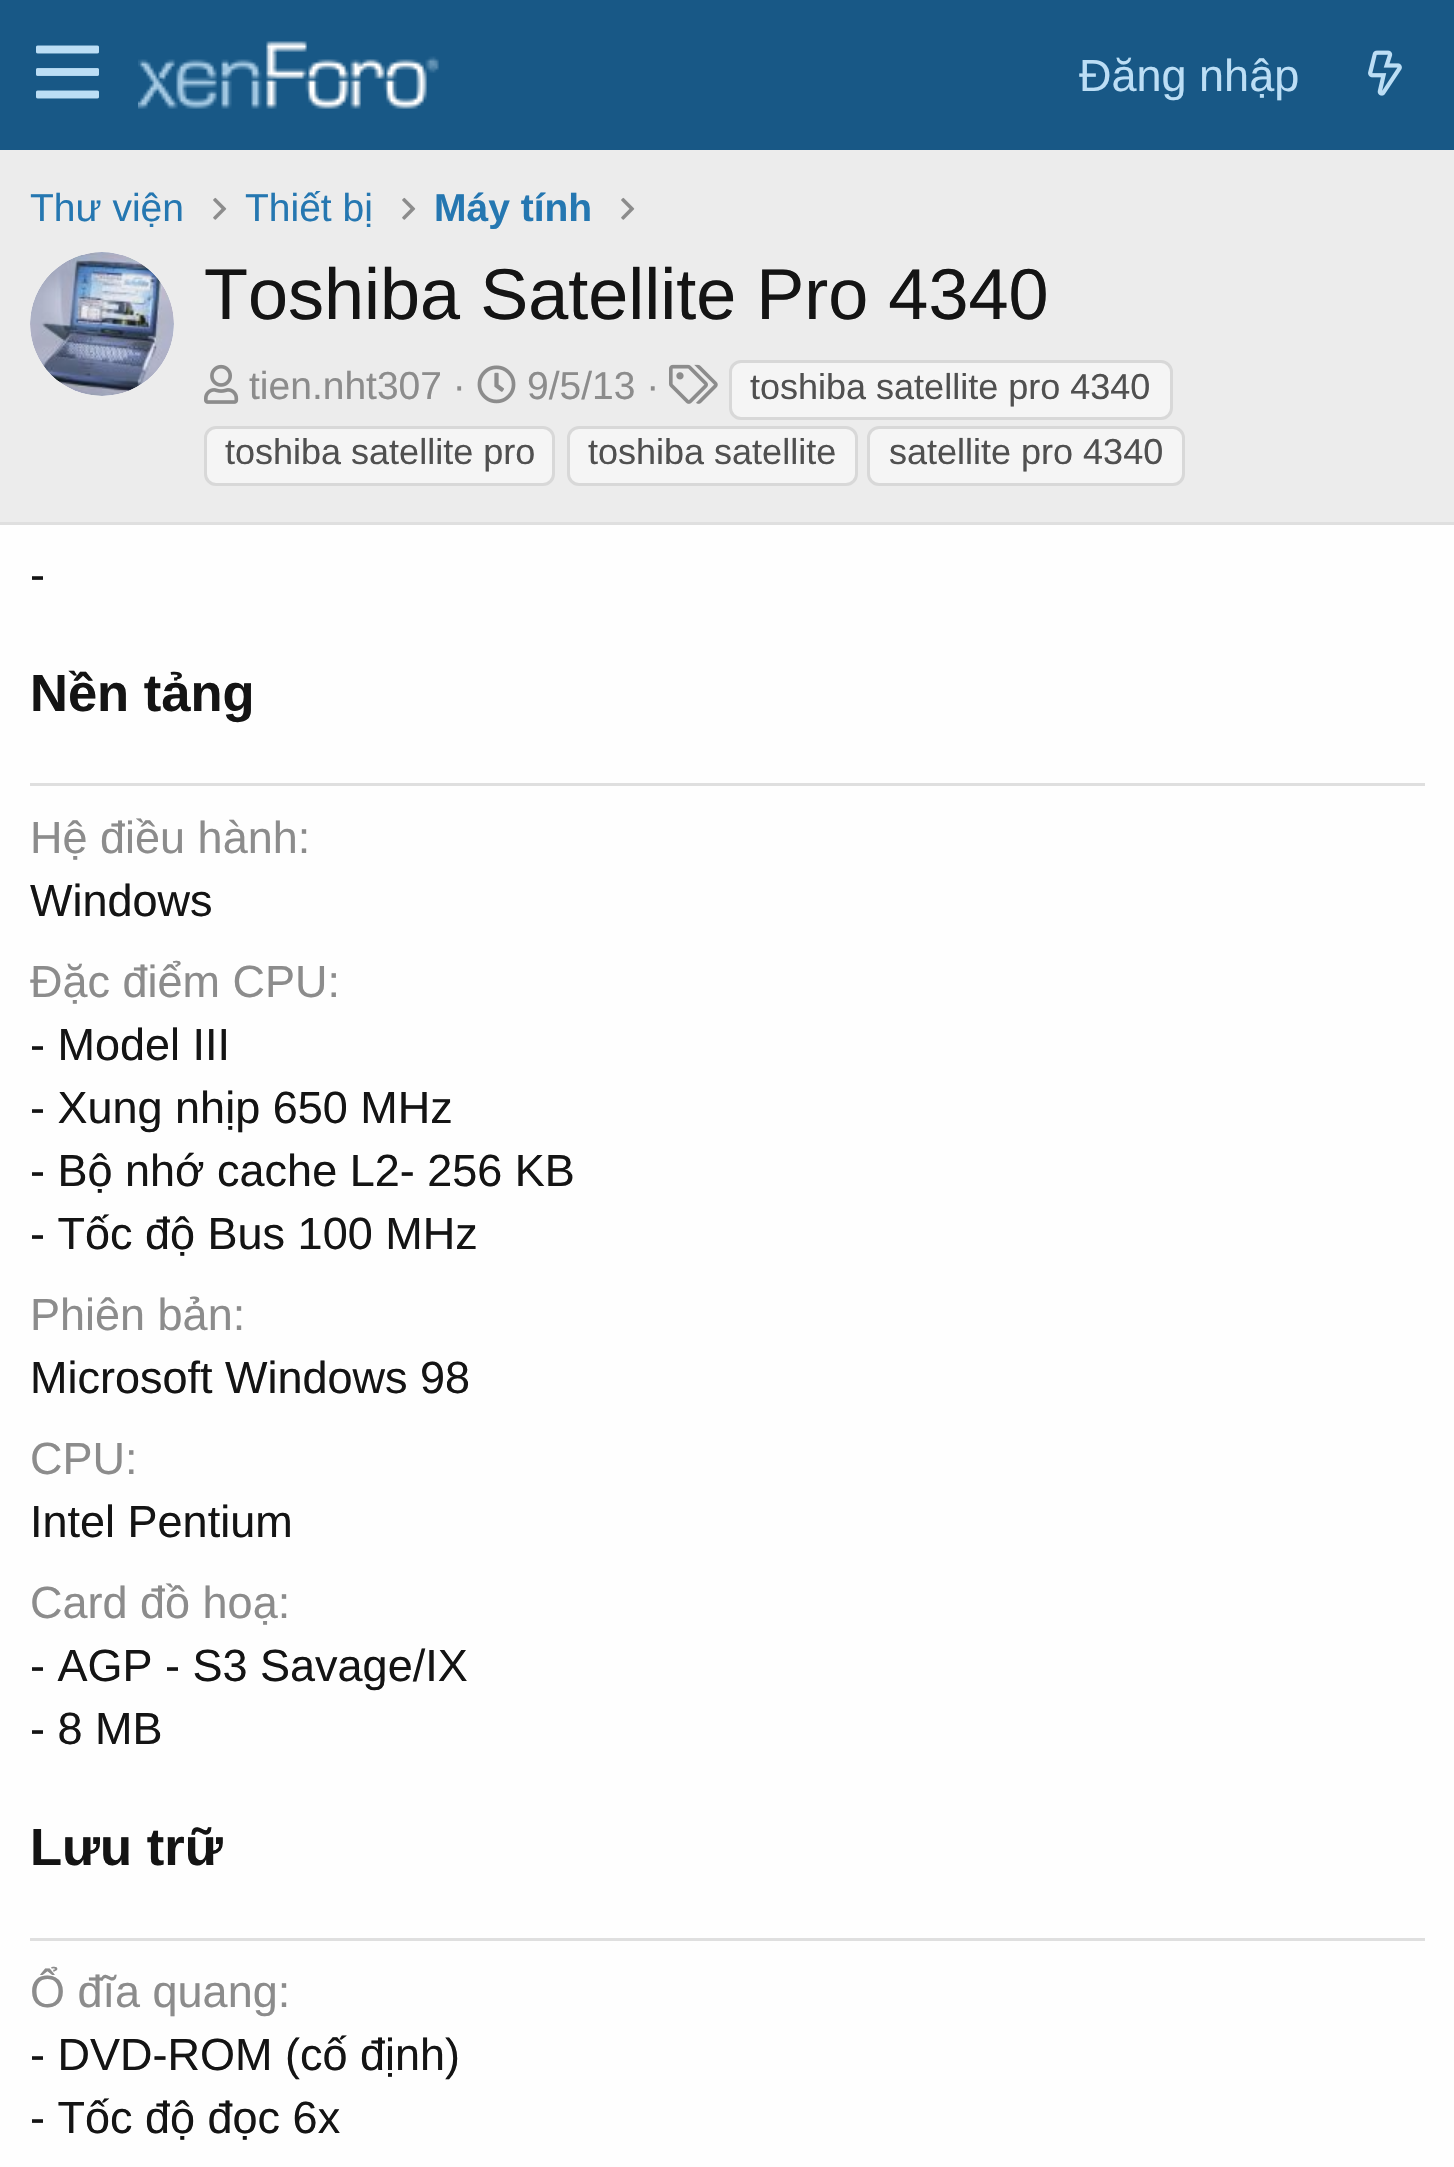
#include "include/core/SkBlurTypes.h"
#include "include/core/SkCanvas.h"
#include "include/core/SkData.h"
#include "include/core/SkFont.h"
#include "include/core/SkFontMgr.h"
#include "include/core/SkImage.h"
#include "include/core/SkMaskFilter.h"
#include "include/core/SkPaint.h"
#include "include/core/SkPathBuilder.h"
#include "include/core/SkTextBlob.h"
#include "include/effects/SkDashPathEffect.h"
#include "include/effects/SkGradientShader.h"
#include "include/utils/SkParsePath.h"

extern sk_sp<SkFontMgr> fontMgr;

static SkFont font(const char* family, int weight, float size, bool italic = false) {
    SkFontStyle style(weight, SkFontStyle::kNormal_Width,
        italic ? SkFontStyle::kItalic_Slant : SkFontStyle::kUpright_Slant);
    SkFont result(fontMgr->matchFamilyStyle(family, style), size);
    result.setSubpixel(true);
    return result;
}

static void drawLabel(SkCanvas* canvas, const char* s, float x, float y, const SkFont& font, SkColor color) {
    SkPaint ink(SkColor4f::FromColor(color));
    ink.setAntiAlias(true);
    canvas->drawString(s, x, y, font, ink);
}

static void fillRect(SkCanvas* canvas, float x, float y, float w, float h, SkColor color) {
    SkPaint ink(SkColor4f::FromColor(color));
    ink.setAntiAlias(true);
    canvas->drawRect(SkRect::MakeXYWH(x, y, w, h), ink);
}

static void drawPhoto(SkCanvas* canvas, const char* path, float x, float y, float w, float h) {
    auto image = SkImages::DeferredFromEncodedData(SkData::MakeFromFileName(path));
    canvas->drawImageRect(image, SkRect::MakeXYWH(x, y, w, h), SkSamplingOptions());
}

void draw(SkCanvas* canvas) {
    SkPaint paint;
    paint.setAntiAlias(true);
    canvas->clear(0xFFECECEC);
    fillRect(canvas, 0, 0, 1454, 150, 0xFF185886);
    drawPhoto(canvas, "assets/img1.png", 36, 45, 63, 54);
    drawPhoto(canvas, "assets/img2.png", 138, 41, 301, 68);
    SkFont font1 = font("Liberation Sans", 400, 45);
    drawLabel(canvas, "Đăng nhập", 1079, 91, font1, 0xFFBCDEF5);
    drawPhoto(canvas, "assets/img3.png", 1368, 50, 34, 46);
    SkFont font2 = font("Liberation Sans", 400, 39);
    drawLabel(canvas, "Thư viện", 30, 221, font2, 0xFF2577B1);
    drawPhoto(canvas, "assets/img4.png", 213, 197, 14, 23);
    drawLabel(canvas, "Thiết bị", 245, 221, font2, 0xFF2577B1);
    drawPhoto(canvas, "assets/img4.png", 402, 197, 14, 23);
    SkFont font3 = font("Liberation Sans", 700, 39);
    drawLabel(canvas, "Máy tính", 434, 221, font3, 0xFF2577B1);
    drawPhoto(canvas, "assets/img4.png", 621, 197, 14, 23);
    paint.setColor(0xFFFEFEFE);
    canvas->drawCircle(102, 324, 72, paint);
    drawPhoto(canvas, "assets/img5.png", 30, 252, 144, 144);
    SkFont font4 = font("Liberation Sans", 400, 72);
    drawLabel(canvas, "Toshiba Satellite Pro 4340", 204, 319, font4, 0xFF141414);
    drawPhoto(canvas, "assets/img6.png", 204, 364, 35, 40);
    drawLabel(canvas, "tien.nht307 ·", 249, 399, font2, 0xFF8C8C8C);
    drawPhoto(canvas, "assets/img7.png", 477, 365, 39, 39);
    drawLabel(canvas, "9/5/13 ·", 527, 399, font2, 0xFF8C8C8C);
    drawPhoto(canvas, "assets/img8.png", 669, 364, 49, 40);
    paint.setColor(0xFFF5F5F5);
    canvas->drawRoundRect(SkRect::MakeXYWH(730.5f, 361.5f, 441, 57), 10.5f, 10.5f, paint);
    paint.setStroke(true);
    paint.setStrokeWidth(3);
    paint.setColor(0xFFD8D8D8);
    canvas->drawRoundRect(SkRect::MakeXYWH(730.5f, 361.5f, 441, 57), 10.5f, 10.5f, paint);
    SkFont font5 = font("Liberation Sans", 400, 36);
    drawLabel(canvas, "toshiba satellite pro 4340", 750, 399, font5, 0xFF505050);
    paint.setStroke(false);
    paint.setColor(0xFFF5F5F5);
    canvas->drawRoundRect(SkRect::MakeXYWH(205.5f, 427.5f, 348, 57), 10.5f, 10.5f, paint);
    paint.setStroke(true);
    paint.setColor(0xFFD8D8D8);
    canvas->drawRoundRect(SkRect::MakeXYWH(205.5f, 427.5f, 348, 57), 10.5f, 10.5f, paint);
    drawLabel(canvas, "toshiba satellite pro", 225, 464, font5, 0xFF505050);
    paint.setStroke(false);
    paint.setColor(0xFFF5F5F5);
    canvas->drawRoundRect(SkRect::MakeXYWH(568.5f, 427.5f, 288, 57), 10.5f, 10.5f, paint);
    paint.setStroke(true);
    paint.setColor(0xFFD8D8D8);
    canvas->drawRoundRect(SkRect::MakeXYWH(568.5f, 427.5f, 288, 57), 10.5f, 10.5f, paint);
    drawLabel(canvas, "toshiba satellite", 588, 464, font5, 0xFF505050);
    paint.setStroke(false);
    paint.setColor(0xFFF5F5F5);
    canvas->drawRoundRect(SkRect::MakeXYWH(868.5f, 427.5f, 315, 57), 10.5f, 10.5f, paint);
    paint.setStroke(true);
    paint.setColor(0xFFD8D8D8);
    canvas->drawRoundRect(SkRect::MakeXYWH(868.5f, 427.5f, 315, 57), 10.5f, 10.5f, paint);
    drawLabel(canvas, "satellite pro 4340", 889, 464, font5, 0xFF505050);
    fillRect(canvas, 0, 525, 1454, 1642, 0xFFFEFEFE);
    fillRect(canvas, 0, 522, 1454, 3, 0xFFDFDFDF);
    drawLabel(canvas, "-", 30, 590, font1, 0xFF141414);
    SkFont font6 = font("Liberation Sans", 700, 52.5f);
    drawLabel(canvas, "Nền tảng", 30, 711, font6, 0xFF141414);
    fillRect(canvas, 30, 783, 1395, 3, 0xFFDFDFDF);
    drawLabel(canvas, "Hệ điều hành:", 30, 853, font1, 0xFF8C8C8C);
    drawLabel(canvas, "Windows", 30, 916, font1, 0xFF141414);
    drawLabel(canvas, "Đặc điểm CPU:", 30, 997, font1, 0xFF8C8C8C);
    drawLabel(canvas, "- Model III", 30, 1060, font1, 0xFF141414);
    drawLabel(canvas, "- Xung nhịp 650 MHz", 30, 1123, font1, 0xFF141414);
    drawLabel(canvas, "- Bộ nhớ cache L2- 256 KB", 30, 1186, font1, 0xFF141414);
    drawLabel(canvas, "- Tốc độ Bus 100 MHz", 30, 1249, font1, 0xFF141414);
    drawLabel(canvas, "Phiên bản:", 30, 1330, font1, 0xFF8C8C8C);
    drawLabel(canvas, "Microsoft Windows 98", 30, 1393, font1, 0xFF141414);
    drawLabel(canvas, "CPU:", 30, 1474, font1, 0xFF8C8C8C);
    drawLabel(canvas, "Intel Pentium", 30, 1537, font1, 0xFF141414);
    drawLabel(canvas, "Card đồ hoạ:", 30, 1618, font1, 0xFF8C8C8C);
    drawLabel(canvas, "- AGP - S3 Savage/IX", 30, 1681, font1, 0xFF141414);
    drawLabel(canvas, "- 8 MB", 30, 1744, font1, 0xFF141414);
    drawLabel(canvas, "Lưu trữ", 30, 1865, font6, 0xFF141414);
    fillRect(canvas, 30, 1938, 1395, 3, 0xFFDFDFDF);
    drawLabel(canvas, "Ổ đĩa quang:", 30, 2007, font1, 0xFF8C8C8C);
    drawLabel(canvas, "- DVD-ROM (cố định)", 30, 2070, font1, 0xFF141414);
    drawLabel(canvas, "- Tốc độ đọc 6x", 30, 2133, font1, 0xFF141414);
}
